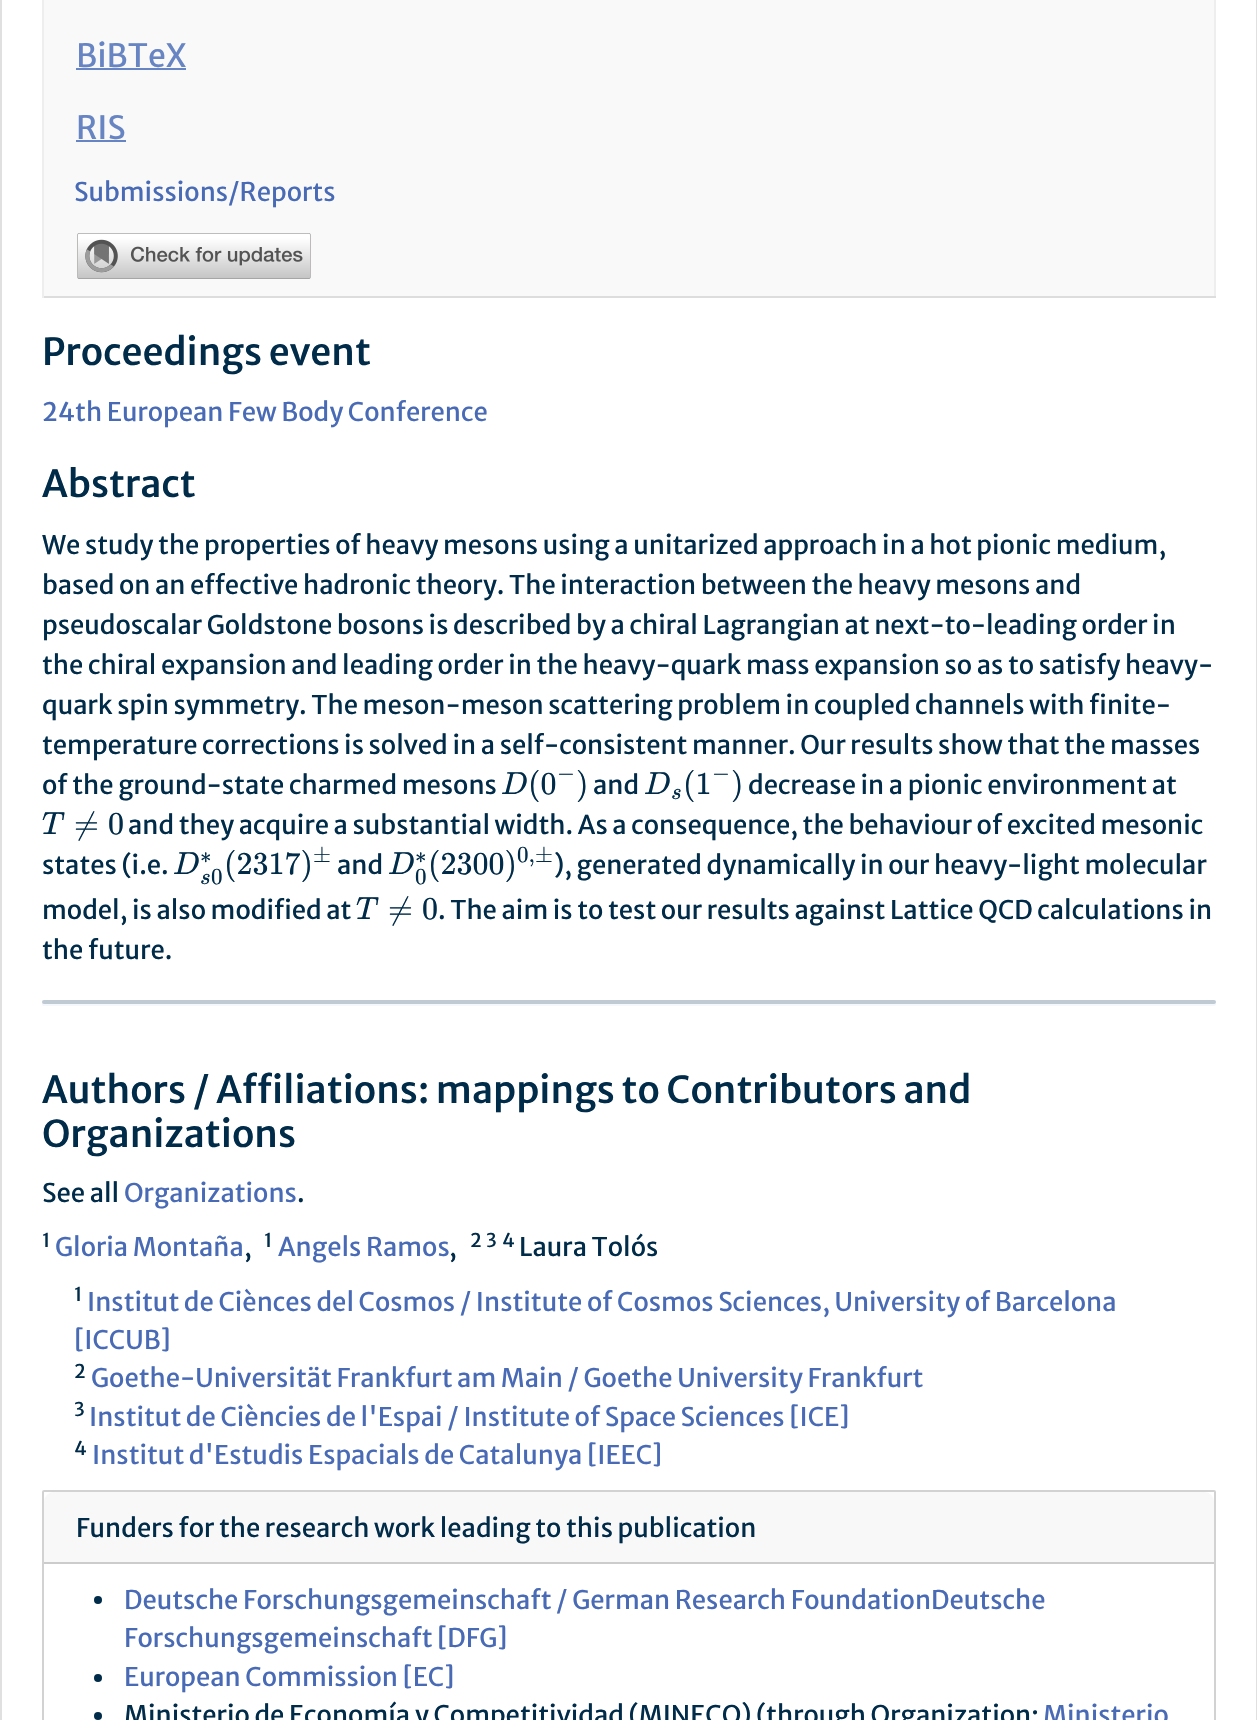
#include "include/core/SkBlurTypes.h"
#include "include/core/SkCanvas.h"
#include "include/core/SkData.h"
#include "include/core/SkFont.h"
#include "include/core/SkFontMgr.h"
#include "include/core/SkImage.h"
#include "include/core/SkMaskFilter.h"
#include "include/core/SkPaint.h"
#include "include/core/SkPathBuilder.h"
#include "include/core/SkTextBlob.h"
#include "include/effects/SkDashPathEffect.h"
#include "include/effects/SkGradientShader.h"
#include "include/utils/SkParsePath.h"

extern sk_sp<SkFontMgr> fontMgr;

static SkFont font(const char* family, int weight, float size, bool italic = false) {
    SkFontStyle style(weight, SkFontStyle::kNormal_Width,
        italic ? SkFontStyle::kItalic_Slant : SkFontStyle::kUpright_Slant);
    SkFont result(fontMgr->matchFamilyStyle(family, style), size);
    result.setSubpixel(true);
    return result;
}

static void drawLabel(SkCanvas* canvas, const char* s, float x, float y, const SkFont& font, SkColor color) {
    SkPaint ink(SkColor4f::FromColor(color));
    ink.setAntiAlias(true);
    canvas->drawString(s, x, y, font, ink);
}

static void fillRect(SkCanvas* canvas, float x, float y, float w, float h, SkColor color) {
    SkPaint ink(SkColor4f::FromColor(color));
    ink.setAntiAlias(true);
    canvas->drawRect(SkRect::MakeXYWH(x, y, w, h), ink);
}

static void fillRRect(SkCanvas* canvas, float x, float y, float w, float h, float radius, SkColor color) {
    SkPaint ink(SkColor4f::FromColor(color));
    ink.setAntiAlias(true);
    canvas->drawRoundRect(SkRect::MakeXYWH(x, y, w, h), radius, radius, ink);
}

static void drawPhoto(SkCanvas* canvas, const char* path, float x, float y, float w, float h) {
    auto image = SkImages::DeferredFromEncodedData(SkData::MakeFromFileName(path));
    canvas->drawImageRect(image, SkRect::MakeXYWH(x, y, w, h), SkSamplingOptions());
}

static SkPath parsePath(const char* data, bool evenOdd = false) {
    SkPath result = *SkParsePath::FromSVGString(data);
    if (evenOdd) result.setFillType(SkPathFillType::kEvenOdd);
    return result;
}

void draw(SkCanvas* canvas) {
    SkPaint paint;
    paint.setAntiAlias(true);
    canvas->clear(0xFFFFFFFF);
    fillRect(canvas, 1256, 0, 1, 1720, 0xFFE0E0E0);
    fillRect(canvas, 0, 0, 2, 1720, 0xFFE0E0E0);
    fillRect(canvas, 44, 0, 1170, 296, 0xFFF9F9F9);
    fillRect(canvas, 1214, 0, 2, 298, 0xFFEEEEEE);
    fillRect(canvas, 42, 296, 1174, 2, 0xFFDDDDDD);
    fillRect(canvas, 42, 0, 2, 298, 0xFFEEEEEE);
    SkFont font1 = font("Merriweather Sans", 400, 32);
    drawLabel(canvas, "BiBTeX", 76, 67, font1, 0xFF6885C3);
    fillRect(canvas, 76, 68, 110, 2, 0xFF6885C3);
    drawLabel(canvas, "RIS", 76, 139, font1, 0xFF6885C3);
    fillRect(canvas, 76, 140, 50, 2, 0xFF6885C3);
    SkFont font2 = font("Merriweather Sans", 400, 25.6f);
    drawLabel(canvas, "Submissions/Reports", 74, 201, font2, 0xFF496BB6);
    drawPhoto(canvas, "assets/img1.png", 77, 233, 234, 46);
    SkFont font3 = font("Merriweather Sans", 500, 37.1f);
    drawLabel(canvas, "Proceedings event", 42, 365, font3, 0xFF002B49);
    drawLabel(canvas, "24th European Few Body Conference", 42, 421, font2, 0xFF496BB6);
    drawLabel(canvas, "Abstract", 42, 497, font3, 0xFF002B49);
    drawLabel(canvas, "We study the properties of heavy mesons using a unitarized approach in a hot pionic medium,", 42, 554, font2, 0xFF002B49);
    drawLabel(canvas, "based on an effective hadronic theory. The interaction between the heavy mesons and", 42, 594, font2, 0xFF002B49);
    drawLabel(canvas, "pseudoscalar Goldstone bosons is described by a chiral Lagrangian at next-to-leading order in", 42, 634, font2, 0xFF002B49);
    drawLabel(canvas, "the chiral expansion and leading order in the heavy-quark mass expansion so as to satisfy heavy-", 42, 674, font2, 0xFF002B49);
    drawLabel(canvas, "quark spin symmetry. The meson-meson scattering problem in coupled channels with finite-", 42, 714, font2, 0xFF002B49);
    drawLabel(canvas, "temperature corrections is solved in a self-consistent manner. Our results show that the masses", 42, 754, font2, 0xFF002B49);
    drawLabel(canvas, "of the ground-state charmed mesons", 42, 794, font2, 0xFF002B49);
    SkFont font4 = font("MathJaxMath", 400, 32, true);
    drawLabel(canvas, "D", 501, 794, font4, 0xFF002B49);
    SkFont font5 = font("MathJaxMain", 400, 32);
    drawLabel(canvas, "(0", 528, 794, font5, 0xFF002B49);
    SkFont font6 = font("MathJaxMain", 400, 23);
    drawLabel(canvas, "−", 557, 780, font6, 0xFF002B49);
    drawLabel(canvas, ")", 576, 794, font5, 0xFF002B49);
    drawLabel(canvas, "and", 593, 794, font2, 0xFF002B49);
    drawLabel(canvas, "D", 644, 794, font4, 0xFF002B49);
    SkFont font7 = font("MathJaxMath", 400, 23, true);
    drawLabel(canvas, "s", 671, 799, font7, 0xFF002B49);
    drawLabel(canvas, "(1", 683, 794, font5, 0xFF002B49);
    drawLabel(canvas, "−", 712, 780, font6, 0xFF002B49);
    drawLabel(canvas, ")", 731, 794, font5, 0xFF002B49);
    drawLabel(canvas, "decrease in a pionic environment at", 748, 794, font2, 0xFF002B49);
    drawLabel(canvas, "T", 42, 834, font4, 0xFF002B49);
    drawLabel(canvas, "≠", 74, 834, font5, 0xFF002B49);
    drawLabel(canvas, "0", 108, 834, font5, 0xFF002B49);
    drawLabel(canvas, "and they acquire a substantial width. As a consequence, the behaviour of excited mesonic", 128, 834, font2, 0xFF002B49);
    drawLabel(canvas, "states (i.e.", 42, 874, font2, 0xFF002B49);
    drawLabel(canvas, "D", 173, 874, font4, 0xFF002B49);
    drawLabel(canvas, "∗", 200, 863, font6, 0xFF002B49);
    drawLabel(canvas, "s", 200, 884, font7, 0xFF002B49);
    drawLabel(canvas, "0", 211, 884, font6, 0xFF002B49);
    drawLabel(canvas, "(2317)", 224, 874, font5, 0xFF002B49);
    drawLabel(canvas, "±", 313, 862, font6, 0xFF002B49);
    drawLabel(canvas, "and", 337, 874, font2, 0xFF002B49);
    drawLabel(canvas, "D", 388, 874, font4, 0xFF002B49);
    drawLabel(canvas, "∗", 415, 863, font6, 0xFF002B49);
    drawLabel(canvas, "0", 415, 884, font6, 0xFF002B49);
    drawLabel(canvas, "(2300)", 428, 874, font5, 0xFF002B49);
    drawLabel(canvas, "0,±", 517, 862, font6, 0xFF002B49);
    drawLabel(canvas, "), generated dynamically in our heavy-light molecular", 554, 874, font2, 0xFF002B49);
    drawLabel(canvas, "model, is also modified at", 42, 919, font2, 0xFF002B49);
    drawLabel(canvas, "T", 356, 919, font4, 0xFF002B49);
    drawLabel(canvas, "≠", 388, 919, font5, 0xFF002B49);
    drawLabel(canvas, "0", 422, 919, font5, 0xFF002B49);
    drawLabel(canvas, ". The aim is to test our results against Lattice QCD calculations in", 438, 919, font2, 0xFF002B49);
    drawLabel(canvas, "the future.", 42, 959, font2, 0xFF002B49);
    paint.setColor(0xFFF4F8FD);
    canvas->drawPath(parsePath("M42 1003C42 1004 42 1006 44 1006H1214C1216 1006 1216 1004 1216 1003L1214 1004H44Z"), paint);
    fillRRect(canvas, 42, 1000, 1174, 4, 2, 0xFFBFCAD2);
    drawLabel(canvas, "Authors / Affiliations: mappings to Contributors and", 42, 1103, font3, 0xFF002B49);
    drawLabel(canvas, "Organizations", 42, 1147, font3, 0xFF002B49);
    drawLabel(canvas, "See all", 42, 1202, font2, 0xFF002B49);
    drawLabel(canvas, "Organizations", 124, 1202, font2, 0xFF496BB6);
    drawLabel(canvas, ".", 297, 1202, font2, 0xFF002B49);
    SkFont font8 = font("Merriweather Sans", 400, 19);
    drawLabel(canvas, "1", 42, 1247, font8, 0xFF002B49);
    drawLabel(canvas, "Gloria Montaña", 55, 1256, font2, 0xFF496BB6);
    drawLabel(canvas, ",", 244, 1256, font2, 0xFF002B49);
    drawLabel(canvas, "1", 264, 1247, font8, 0xFF002B49);
    drawLabel(canvas, "Angels Ramos", 278, 1256, font2, 0xFF496BB6);
    drawLabel(canvas, ",", 449, 1256, font2, 0xFF002B49);
    drawLabel(canvas, "2", 470, 1247, font8, 0xFF002B49);
    drawLabel(canvas, "3", 486, 1247, font8, 0xFF002B49);
    drawLabel(canvas, "4", 502, 1247, font8, 0xFF002B49);
    drawLabel(canvas, "Laura Tolós", 519, 1256, font2, 0xFF002B49);
    drawLabel(canvas, "1", 74, 1301, font8, 0xFF002B49);
    drawLabel(canvas, "Institut de Ciènces del Cosmos / Institute of Cosmos Sciences, University of Barcelona", 87, 1311, font2, 0xFF496BB6);
    drawLabel(canvas, "[ICCUB]", 74, 1349, font2, 0xFF496BB6);
    drawLabel(canvas, "2", 74, 1378, font8, 0xFF002B49);
    drawLabel(canvas, "Goethe-Universität Frankfurt am Main / Goethe University Frankfurt", 91, 1387, font2, 0xFF496BB6);
    drawLabel(canvas, "3", 74, 1416, font8, 0xFF002B49);
    drawLabel(canvas, "Institut de Ciències de l'Espai / Institute of Space Sciences [ICE]", 89, 1426, font2, 0xFF496BB6);
    drawLabel(canvas, "4", 74, 1455, font8, 0xFF002B49);
    drawLabel(canvas, "Institut d'Estudis Espacials de Catalunya [IEEC]", 92, 1464, font2, 0xFF496BB6);
    paint.setStroke(true);
    paint.setStrokeWidth(2);
    paint.setColor(0xFFD2D2D2);
    canvas->drawRoundRect(SkRect::MakeXYWH(43, 1491, 1172, 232), 1, 1, paint);
    paint.setStroke(false);
    paint.setColor(0xFFF8F8F8);
    canvas->drawPath(parsePath("M54 1492H1204C1209.5 1492 1214 1496.5 1214 1502V1564H44V1502C44 1496.5 48.5 1492 54 1492Z"), paint);
    fillRect(canvas, 44, 1562, 1170, 2, 0xFFCCCCCC);
    drawLabel(canvas, "Funders for the research work leading to this publication", 76, 1537, font2, 0xFF002B49);
    paint.setColor(0xFF002B49);
    canvas->drawCircle(98, 1600, 4, paint);
    drawLabel(canvas, "Deutsche Forschungsgemeinschaft / German Research FoundationDeutsche", 124, 1609, font2, 0xFF496BB6);
    drawLabel(canvas, "Forschungsgemeinschaft [DFG]", 124, 1647, font2, 0xFF496BB6);
    canvas->drawCircle(98, 1678, 4, paint);
    drawLabel(canvas, "European Commission [EC]", 124, 1686, font2, 0xFF496BB6);
    canvas->drawCircle(98, 1716, 4, paint);
    drawLabel(canvas, "Ministerio de Economía y Competitividad (MINECO) (through Organization:", 124, 1724, font2, 0xFF002B49);
    drawLabel(canvas, "Ministerio", 1043, 1724, font2, 0xFF496BB6);
}
